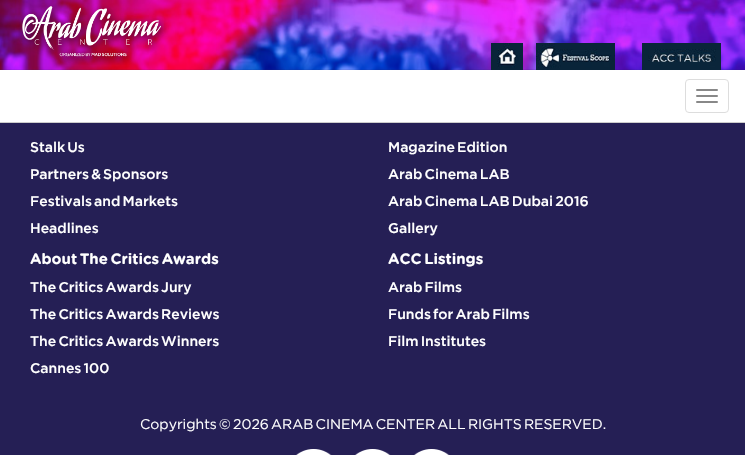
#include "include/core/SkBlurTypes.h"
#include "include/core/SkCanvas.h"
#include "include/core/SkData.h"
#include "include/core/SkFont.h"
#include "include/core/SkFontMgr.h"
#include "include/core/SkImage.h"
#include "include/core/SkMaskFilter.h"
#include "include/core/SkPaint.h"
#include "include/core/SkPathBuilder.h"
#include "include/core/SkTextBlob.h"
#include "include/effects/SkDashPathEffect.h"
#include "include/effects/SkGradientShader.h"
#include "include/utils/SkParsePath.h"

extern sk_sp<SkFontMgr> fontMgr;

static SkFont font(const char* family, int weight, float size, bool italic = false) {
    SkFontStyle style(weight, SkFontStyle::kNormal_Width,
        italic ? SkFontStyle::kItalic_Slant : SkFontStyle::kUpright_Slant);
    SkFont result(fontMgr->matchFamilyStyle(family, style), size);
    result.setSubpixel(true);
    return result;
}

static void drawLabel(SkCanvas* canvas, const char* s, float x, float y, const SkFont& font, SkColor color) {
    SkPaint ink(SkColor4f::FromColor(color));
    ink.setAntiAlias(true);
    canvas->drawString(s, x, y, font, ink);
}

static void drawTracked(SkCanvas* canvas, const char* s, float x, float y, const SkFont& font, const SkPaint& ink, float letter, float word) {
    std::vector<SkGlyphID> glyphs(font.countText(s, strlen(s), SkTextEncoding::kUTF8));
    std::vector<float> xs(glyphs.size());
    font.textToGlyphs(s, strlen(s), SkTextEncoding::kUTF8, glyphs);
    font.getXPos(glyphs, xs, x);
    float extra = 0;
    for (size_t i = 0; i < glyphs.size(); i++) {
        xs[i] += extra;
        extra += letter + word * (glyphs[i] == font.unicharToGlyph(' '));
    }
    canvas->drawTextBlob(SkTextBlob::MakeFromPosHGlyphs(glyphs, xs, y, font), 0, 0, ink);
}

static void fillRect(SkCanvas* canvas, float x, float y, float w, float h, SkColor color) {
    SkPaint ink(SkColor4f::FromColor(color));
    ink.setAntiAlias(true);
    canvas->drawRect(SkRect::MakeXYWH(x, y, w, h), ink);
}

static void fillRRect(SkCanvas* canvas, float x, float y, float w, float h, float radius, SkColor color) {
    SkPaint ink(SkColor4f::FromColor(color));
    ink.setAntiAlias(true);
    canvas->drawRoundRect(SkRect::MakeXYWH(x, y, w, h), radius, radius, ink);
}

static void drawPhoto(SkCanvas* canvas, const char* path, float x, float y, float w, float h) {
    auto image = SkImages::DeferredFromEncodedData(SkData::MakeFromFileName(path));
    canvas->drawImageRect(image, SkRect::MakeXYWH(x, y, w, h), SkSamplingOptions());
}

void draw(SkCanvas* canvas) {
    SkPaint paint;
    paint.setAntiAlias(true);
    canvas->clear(0xFF251F55);
    drawPhoto(canvas, "assets/img1.png", 0, 0, 745, 70);
    drawPhoto(canvas, "assets/img2.png", 18, 3, 151, 62);
    drawPhoto(canvas, "assets/img3.png", 491, 43, 32, 27);
    drawPhoto(canvas, "assets/img4.png", 536, 43, 79, 27);
    drawPhoto(canvas, "assets/img5.png", 642, 43, 79, 27);
    fillRect(canvas, 0, 70, 745, 52, 0xFFFFFFFF);
    fillRect(canvas, 0, 122, 745, 1, 0xFFCCCCCC);
    paint.setStroke(true);
    paint.setStrokeWidth(1);
    paint.setColor(0xFFDDDDDD);
    canvas->drawRoundRect(SkRect::MakeXYWH(685.5f, 79.5f, 43, 33), 3.5f, 3.5f, paint);
    fillRRect(canvas, 696, 89, 22, 2, 1, 0xFF888888);
    fillRRect(canvas, 696, 95, 22, 2, 1, 0xFF888888);
    fillRRect(canvas, 696, 101, 22, 2, 1, 0xFF888888);
    SkFont font1 = font("Gotham", 500, 14);
    paint.setStroke(false);
    paint.setColor(0xFFFFFFFF);
    drawTracked(canvas, "Stalk Us", 30, 152, font1, paint, 0, -2);
    drawTracked(canvas, "Partners & Sponsors", 30, 179, font1, paint, 0, -2);
    drawTracked(canvas, "Festivals and Markets", 30, 206, font1, paint, 0, -2);
    drawLabel(canvas, "Headlines", 30, 233, font1, 0xFFFFFFFF);
    drawTracked(canvas, "Magazine Edition", 388, 152, font1, paint, 0, -2);
    drawTracked(canvas, "Arab Cinema LAB", 388, 179, font1, paint, 0, -2);
    drawTracked(canvas, "Arab Cinema LAB Dubai 2016", 388, 206, font1, paint, 0, -2);
    drawLabel(canvas, "Gallery", 388, 233, font1, 0xFFFFFFFF);
    SkFont font2 = font("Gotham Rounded", 700, 15);
    drawTracked(canvas, "About The Critics Awards", 30, 264, font2, paint, 0, -2);
    drawTracked(canvas, "The Critics Awards Jury", 30, 292, font1, paint, 0, -2);
    drawTracked(canvas, "The Critics Awards Reviews", 30, 319, font1, paint, 0, -2);
    drawTracked(canvas, "The Critics Awards Winners", 30, 346, font1, paint, 0, -2);
    drawTracked(canvas, "Cannes 100", 30, 373, font1, paint, 0, -2);
    drawTracked(canvas, "ACC Listings", 388, 264, font2, paint, 0, -2);
    drawTracked(canvas, "Arab Films", 388, 292, font1, paint, 0, -2);
    drawTracked(canvas, "Funds for Arab Films", 388, 319, font1, paint, 0, -2);
    drawTracked(canvas, "Film Institutes", 388, 346, font1, paint, 0, -2);
    SkFont font3 = font("Gotham", 400, 14);
    drawTracked(canvas, "Copyrights ©", 140, 429, font3, paint, 0, -2);
    drawTracked(canvas, "2026 ARAB CINEMA CENTER ALL RIGHTS RESERVED.", 233, 429, font3, paint, 0, -2);
    drawPhoto(canvas, "assets/img6.png", 296, 449, 36, 6);
    drawPhoto(canvas, "assets/img7.png", 355, 449, 36, 6);
    drawPhoto(canvas, "assets/img8.png", 414, 449, 36, 6);
}
